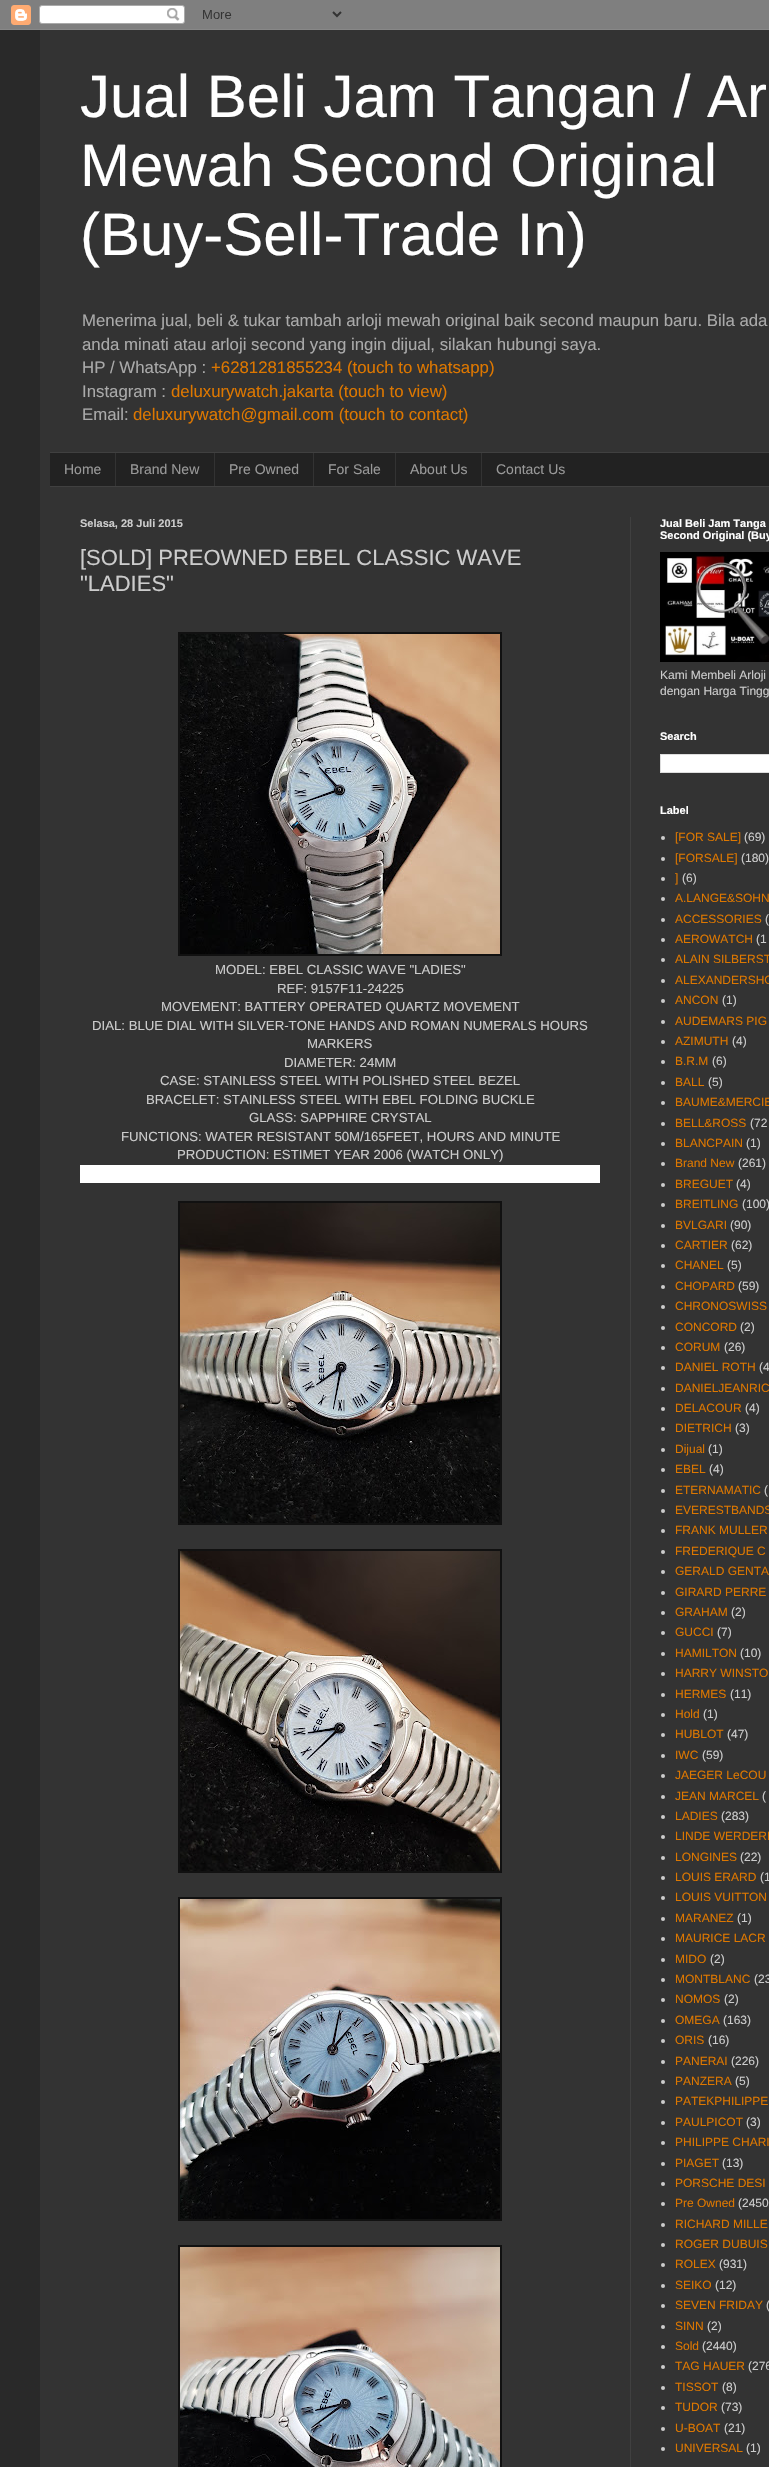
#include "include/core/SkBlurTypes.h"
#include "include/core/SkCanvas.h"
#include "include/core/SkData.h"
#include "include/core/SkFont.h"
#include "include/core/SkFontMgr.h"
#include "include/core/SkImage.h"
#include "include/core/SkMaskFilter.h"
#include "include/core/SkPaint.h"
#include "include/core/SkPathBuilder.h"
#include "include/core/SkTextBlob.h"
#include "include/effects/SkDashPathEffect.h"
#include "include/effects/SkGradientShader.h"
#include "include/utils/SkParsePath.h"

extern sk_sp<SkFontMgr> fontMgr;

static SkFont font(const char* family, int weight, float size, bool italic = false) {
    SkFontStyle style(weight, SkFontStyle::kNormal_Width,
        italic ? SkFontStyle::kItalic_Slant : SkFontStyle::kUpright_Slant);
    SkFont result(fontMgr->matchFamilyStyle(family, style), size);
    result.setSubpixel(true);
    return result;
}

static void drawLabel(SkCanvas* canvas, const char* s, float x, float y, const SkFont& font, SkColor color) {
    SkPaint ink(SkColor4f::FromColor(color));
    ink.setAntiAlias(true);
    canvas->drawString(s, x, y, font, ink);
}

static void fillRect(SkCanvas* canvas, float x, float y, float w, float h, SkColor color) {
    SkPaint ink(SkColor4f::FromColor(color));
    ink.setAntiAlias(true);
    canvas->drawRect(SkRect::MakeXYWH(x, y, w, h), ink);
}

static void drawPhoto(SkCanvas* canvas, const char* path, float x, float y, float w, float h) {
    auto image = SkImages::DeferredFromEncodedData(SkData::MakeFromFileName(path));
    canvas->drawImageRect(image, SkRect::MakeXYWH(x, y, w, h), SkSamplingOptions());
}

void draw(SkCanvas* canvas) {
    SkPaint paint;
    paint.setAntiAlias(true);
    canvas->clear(0xFF292929);
    drawPhoto(canvas, "assets/img1.png", 0, 0, 769, 30);
    fillRect(canvas, 40, 30, 729, 2437, 0xFF333333);
    SkFont font1 = font("Liberation Sans", 400, 60);
    drawLabel(canvas, "Jual Beli Jam Tangan / Ar", 80, 117, font1, 0xFFFFFFFF);
    drawLabel(canvas, "Mewah Second Original", 80, 186, font1, 0xFFFFFFFF);
    drawLabel(canvas, "(Buy-Sell-Trade In)", 80, 255, font1, 0xFFFFFFFF);
    SkFont font2 = font("Liberation Sans", 400, 16.8f);
    drawLabel(canvas, "Menerima jual, beli & tukar tambah arloji mewah original baik second maupun baru. Bila ada", 82, 326, font2, 0xFFAAAAAA);
    drawLabel(canvas, "anda minati atau arloji second yang ingin dijual, silakan hubungi saya.", 82, 350, font2, 0xFFAAAAAA);
    drawLabel(canvas, "HP / WhatsApp :", 82, 373, font2, 0xFFAAAAAA);
    drawLabel(canvas, "+6281281855234 (touch to whatsapp)", 211, 373, font2, 0xFFDD7700);
    drawLabel(canvas, "Instagram :", 82, 397, font2, 0xFFAAAAAA);
    drawLabel(canvas, "deluxurywatch.jakarta (touch to view)", 171, 397, font2, 0xFFDD7700);
    drawLabel(canvas, "Email:", 82, 420, font2, 0xFFAAAAAA);
    drawLabel(canvas, "deluxurywatch@gmail.com (touch to contact)", 133, 420, font2, 0xFFDD7700);
    fillRect(canvas, 50, 453, 719, 33, 0xFF222222);
    fillRect(canvas, 50, 452, 719, 1, 0xFF404040);
    fillRect(canvas, 50, 486, 719, 1, 0xFF404040);
    SkFont font3 = font("Liberation Sans", 400, 14);
    drawLabel(canvas, "Home", 64, 474, font3, 0xFF999999);
    fillRect(canvas, 115, 453, 1, 33, 0xFF333333);
    drawLabel(canvas, "Brand New", 130, 474, font3, 0xFF999999);
    fillRect(canvas, 214, 453, 1, 33, 0xFF333333);
    drawLabel(canvas, "Pre Owned", 229, 474, font3, 0xFF999999);
    fillRect(canvas, 313, 453, 1, 33, 0xFF333333);
    drawLabel(canvas, "For Sale", 328, 474, font3, 0xFF999999);
    fillRect(canvas, 395, 453, 1, 33, 0xFF333333);
    drawLabel(canvas, "About Us", 410, 474, font3, 0xFF999999);
    fillRect(canvas, 481, 453, 1, 33, 0xFF333333);
    drawLabel(canvas, "Contact Us", 496, 474, font3, 0xFF999999);
    fillRect(canvas, 630, 517, 1, 1950, 0xFF404040);
    SkFont font4 = font("Liberation Sans", 700, 11);
    drawLabel(canvas, "Selasa, 28 Juli 2015", 80, 527, font4, 0xFFCCCCCC);
    SkFont font5 = font("Liberation Sans", 400, 22);
    drawLabel(canvas, "[SOLD] PREOWNED EBEL CLASSIC WAVE", 80, 565, font5, 0xFFCCCCCC);
    drawLabel(canvas, "\"LADIES\"", 80, 591, font5, 0xFFCCCCCC);
    fillRect(canvas, 178, 632, 324, 324, 0xFF111111);
    drawPhoto(canvas, "assets/img2.png", 180, 634, 320, 320);
    SkFont font6 = font("Liberation Sans", 400, 13.2f);
    drawLabel(canvas, "MODEL: EBEL CLASSIC WAVE \"LADIES\"", 215, 974, font6, 0xFFCCCCCC);
    drawLabel(canvas, "REF: 9157F11-24225", 277, 993, font6, 0xFFCCCCCC);
    drawLabel(canvas, "MOVEMENT: BATTERY OPERATED QUARTZ MOVEMENT", 161, 1011, font6, 0xFFCCCCCC);
    drawLabel(canvas, "DIAL: BLUE DIAL WITH SILVER-TONE HANDS AND ROMAN NUMERALS HOURS", 92, 1030, font6, 0xFFCCCCCC);
    drawLabel(canvas, "MARKERS", 307, 1048, font6, 0xFFCCCCCC);
    drawLabel(canvas, "DIAMETER: 24MM", 284, 1067, font6, 0xFFCCCCCC);
    drawLabel(canvas, "CASE: STAINLESS STEEL WITH POLISHED STEEL BEZEL", 160, 1085, font6, 0xFFCCCCCC);
    drawLabel(canvas, "BRACELET: STAINLESS STEEL WITH EBEL FOLDING BUCKLE", 146, 1104, font6, 0xFFCCCCCC);
    drawLabel(canvas, "GLASS: SAPPHIRE CRYSTAL", 249, 1122, font6, 0xFFCCCCCC);
    drawLabel(canvas, "FUNCTIONS: WATER RESISTANT 50M/165FEET, HOURS AND MINUTE", 121, 1141, font6, 0xFFCCCCCC);
    drawLabel(canvas, "PRODUCTION: ESTIMET YEAR 2006 (WATCH ONLY)", 177, 1159, font6, 0xFFCCCCCC);
    fillRect(canvas, 80, 1165, 520, 18, 0xFFFFFFFF);
    fillRect(canvas, 178, 1201, 324, 324, 0xFF111111);
    drawPhoto(canvas, "assets/img3.png", 180, 1203, 320, 320);
    fillRect(canvas, 178, 1549, 324, 324, 0xFF111111);
    drawPhoto(canvas, "assets/img4.png", 180, 1551, 320, 320);
    fillRect(canvas, 178, 1897, 324, 324, 0xFF111111);
    drawPhoto(canvas, "assets/img5.png", 180, 1899, 320, 320);
    fillRect(canvas, 178, 2245, 324, 222, 0xFF111111);
    drawPhoto(canvas, "assets/img6.png", 180, 2247, 320, 220);
    drawLabel(canvas, "Jual Beli Jam Tanga", 660, 527, font4, 0xFFFFFFFF);
    drawLabel(canvas, "Second Original (Buy", 660, 539, font4, 0xFFFFFFFF);
    drawPhoto(canvas, "assets/img7.png", 660, 552, 109, 110);
    SkFont font7 = font("Liberation Sans", 400, 12);
    drawLabel(canvas, "Kami Membeli Arloji", 660, 679, font7, 0xFFCCCCCC);
    drawLabel(canvas, "dengan Harga Tingg", 660, 695, font7, 0xFFCCCCCC);
    drawLabel(canvas, "Search", 660, 740, font4, 0xFFFFFFFF);
    paint.setColor(0xFFFFFFFF);
    canvas->drawRect(SkRect::MakeXYWH(660.5f, 754.5f, 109, 18), paint);
    paint.setStroke(true);
    paint.setStrokeWidth(1);
    paint.setColor(0xFFDDDDDD);
    canvas->drawRect(SkRect::MakeXYWH(660.5f, 754.5f, 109, 18), paint);
    drawLabel(canvas, "Label", 660, 814, font4, 0xFFFFFFFF);
    paint.setStroke(false);
    paint.setColor(0xFFCCCCCC);
    canvas->drawCircle(663, 838, 2, paint);
    drawLabel(canvas, "[FOR SALE]", 675, 841, font7, 0xFFDD7700);
    drawLabel(canvas, "(69)", 744, 841, font7, 0xFFCCCCCC);
    canvas->drawCircle(663, 859, 2, paint);
    drawLabel(canvas, "[FORSALE]", 675, 862, font7, 0xFFDD7700);
    drawLabel(canvas, "(180)", 741, 862, font7, 0xFFCCCCCC);
    canvas->drawCircle(663, 879, 2, paint);
    drawLabel(canvas, "]", 675, 882, font7, 0xFFDD7700);
    drawLabel(canvas, "(6)", 682, 882, font7, 0xFFCCCCCC);
    canvas->drawCircle(663, 899, 2, paint);
    drawLabel(canvas, "A.LANGE&SOHN", 675, 902, font7, 0xFFDD7700);
    canvas->drawCircle(663, 920, 2, paint);
    drawLabel(canvas, "ACCESSORIES", 675, 923, font7, 0xFFDD7700);
    drawLabel(canvas, "(", 765, 923, font7, 0xFFCCCCCC);
    canvas->drawCircle(663, 940, 2, paint);
    drawLabel(canvas, "AEROWATCH", 675, 943, font7, 0xFFDD7700);
    drawLabel(canvas, "(1", 756, 943, font7, 0xFFCCCCCC);
    canvas->drawCircle(663, 960, 2, paint);
    drawLabel(canvas, "ALAIN SILBERST", 675, 963, font7, 0xFFDD7700);
    canvas->drawCircle(663, 981, 2, paint);
    drawLabel(canvas, "ALEXANDERSHO", 675, 984, font7, 0xFFDD7700);
    canvas->drawCircle(663, 1001, 2, paint);
    drawLabel(canvas, "ANCON", 675, 1004, font7, 0xFFDD7700);
    drawLabel(canvas, "(1)", 722, 1004, font7, 0xFFCCCCCC);
    canvas->drawCircle(663, 1022, 2, paint);
    drawLabel(canvas, "AUDEMARS PIG", 675, 1025, font7, 0xFFDD7700);
    canvas->drawCircle(663, 1042, 2, paint);
    drawLabel(canvas, "AZIMUTH", 675, 1045, font7, 0xFFDD7700);
    drawLabel(canvas, "(4)", 732, 1045, font7, 0xFFCCCCCC);
    canvas->drawCircle(663, 1062, 2, paint);
    drawLabel(canvas, "B.R.M", 675, 1065, font7, 0xFFDD7700);
    drawLabel(canvas, "(6)", 712, 1065, font7, 0xFFCCCCCC);
    canvas->drawCircle(663, 1083, 2, paint);
    drawLabel(canvas, "BALL", 675, 1086, font7, 0xFFDD7700);
    drawLabel(canvas, "(5)", 708, 1086, font7, 0xFFCCCCCC);
    canvas->drawCircle(663, 1103, 2, paint);
    drawLabel(canvas, "BAUME&MERCIE", 675, 1106, font7, 0xFFDD7700);
    canvas->drawCircle(663, 1124, 2, paint);
    drawLabel(canvas, "BELL&ROSS", 675, 1127, font7, 0xFFDD7700);
    drawLabel(canvas, "(72", 750, 1127, font7, 0xFFCCCCCC);
    canvas->drawCircle(663, 1144, 2, paint);
    drawLabel(canvas, "BLANCPAIN", 675, 1147, font7, 0xFFDD7700);
    drawLabel(canvas, "(1)", 746, 1147, font7, 0xFFCCCCCC);
    canvas->drawCircle(663, 1164, 2, paint);
    drawLabel(canvas, "Brand New", 675, 1167, font7, 0xFFDD7700);
    drawLabel(canvas, "(261)", 738, 1167, font7, 0xFFCCCCCC);
    canvas->drawCircle(663, 1185, 2, paint);
    drawLabel(canvas, "BREGUET", 675, 1188, font7, 0xFFDD7700);
    drawLabel(canvas, "(4)", 736, 1188, font7, 0xFFCCCCCC);
    canvas->drawCircle(663, 1205, 2, paint);
    drawLabel(canvas, "BREITLING", 675, 1208, font7, 0xFFDD7700);
    drawLabel(canvas, "(100)", 742, 1208, font7, 0xFFCCCCCC);
    canvas->drawCircle(663, 1226, 2, paint);
    drawLabel(canvas, "BVLGARI", 675, 1229, font7, 0xFFDD7700);
    drawLabel(canvas, "(90)", 730, 1229, font7, 0xFFCCCCCC);
    canvas->drawCircle(663, 1246, 2, paint);
    drawLabel(canvas, "CARTIER", 675, 1249, font7, 0xFFDD7700);
    drawLabel(canvas, "(62)", 731, 1249, font7, 0xFFCCCCCC);
    canvas->drawCircle(663, 1266, 2, paint);
    drawLabel(canvas, "CHANEL", 675, 1269, font7, 0xFFDD7700);
    drawLabel(canvas, "(5)", 727, 1269, font7, 0xFFCCCCCC);
    canvas->drawCircle(663, 1287, 2, paint);
    drawLabel(canvas, "CHOPARD", 675, 1290, font7, 0xFFDD7700);
    drawLabel(canvas, "(59)", 738, 1290, font7, 0xFFCCCCCC);
    canvas->drawCircle(663, 1307, 2, paint);
    drawLabel(canvas, "CHRONOSWISS", 675, 1310, font7, 0xFFDD7700);
    canvas->drawCircle(663, 1328, 2, paint);
    drawLabel(canvas, "CONCORD", 675, 1331, font7, 0xFFDD7700);
    drawLabel(canvas, "(2)", 740, 1331, font7, 0xFFCCCCCC);
    canvas->drawCircle(663, 1348, 2, paint);
    drawLabel(canvas, "CORUM", 675, 1351, font7, 0xFFDD7700);
    drawLabel(canvas, "(26)", 724, 1351, font7, 0xFFCCCCCC);
    canvas->drawCircle(663, 1368, 2, paint);
    drawLabel(canvas, "DANIEL ROTH", 675, 1371, font7, 0xFFDD7700);
    drawLabel(canvas, "(4", 759, 1371, font7, 0xFFCCCCCC);
    canvas->drawCircle(663, 1389, 2, paint);
    drawLabel(canvas, "DANIELJEANRIC", 675, 1392, font7, 0xFFDD7700);
    canvas->drawCircle(663, 1409, 2, paint);
    drawLabel(canvas, "DELACOUR", 675, 1412, font7, 0xFFDD7700);
    drawLabel(canvas, "(4)", 745, 1412, font7, 0xFFCCCCCC);
    canvas->drawCircle(663, 1429, 2, paint);
    drawLabel(canvas, "DIETRICH", 675, 1432, font7, 0xFFDD7700);
    drawLabel(canvas, "(3)", 735, 1432, font7, 0xFFCCCCCC);
    canvas->drawCircle(663, 1450, 2, paint);
    drawLabel(canvas, "Dijual", 675, 1453, font7, 0xFFDD7700);
    drawLabel(canvas, "(1)", 708, 1453, font7, 0xFFCCCCCC);
    canvas->drawCircle(663, 1470, 2, paint);
    drawLabel(canvas, "EBEL", 675, 1473, font7, 0xFFDD7700);
    drawLabel(canvas, "(4)", 709, 1473, font7, 0xFFCCCCCC);
    canvas->drawCircle(663, 1491, 2, paint);
    drawLabel(canvas, "ETERNAMATIC", 675, 1494, font7, 0xFFDD7700);
    drawLabel(canvas, "(", 764, 1494, font7, 0xFFCCCCCC);
    canvas->drawCircle(663, 1511, 2, paint);
    drawLabel(canvas, "EVERESTBANDS", 675, 1514, font7, 0xFFDD7700);
    canvas->drawCircle(663, 1531, 2, paint);
    drawLabel(canvas, "FRANK MULLER", 675, 1534, font7, 0xFFDD7700);
    canvas->drawCircle(663, 1552, 2, paint);
    drawLabel(canvas, "FREDERIQUE C", 675, 1555, font7, 0xFFDD7700);
    canvas->drawCircle(663, 1572, 2, paint);
    drawLabel(canvas, "GERALD GENTA", 675, 1575, font7, 0xFFDD7700);
    canvas->drawCircle(663, 1593, 2, paint);
    drawLabel(canvas, "GIRARD PERRE", 675, 1596, font7, 0xFFDD7700);
    canvas->drawCircle(663, 1613, 2, paint);
    drawLabel(canvas, "GRAHAM", 675, 1616, font7, 0xFFDD7700);
    drawLabel(canvas, "(2)", 731, 1616, font7, 0xFFCCCCCC);
    canvas->drawCircle(663, 1633, 2, paint);
    drawLabel(canvas, "GUCCI", 675, 1636, font7, 0xFFDD7700);
    drawLabel(canvas, "(7)", 717, 1636, font7, 0xFFCCCCCC);
    canvas->drawCircle(663, 1654, 2, paint);
    drawLabel(canvas, "HAMILTON", 675, 1657, font7, 0xFFDD7700);
    drawLabel(canvas, "(10)", 740, 1657, font7, 0xFFCCCCCC);
    canvas->drawCircle(663, 1674, 2, paint);
    drawLabel(canvas, "HARRY WINSTO", 675, 1677, font7, 0xFFDD7700);
    canvas->drawCircle(663, 1695, 2, paint);
    drawLabel(canvas, "HERMES", 675, 1698, font7, 0xFFDD7700);
    drawLabel(canvas, "(11)", 730, 1698, font7, 0xFFCCCCCC);
    canvas->drawCircle(663, 1715, 2, paint);
    drawLabel(canvas, "Hold", 675, 1718, font7, 0xFFDD7700);
    drawLabel(canvas, "(1)", 703, 1718, font7, 0xFFCCCCCC);
    canvas->drawCircle(663, 1735, 2, paint);
    drawLabel(canvas, "HUBLOT", 675, 1738, font7, 0xFFDD7700);
    drawLabel(canvas, "(47)", 727, 1738, font7, 0xFFCCCCCC);
    canvas->drawCircle(663, 1756, 2, paint);
    drawLabel(canvas, "IWC", 675, 1759, font7, 0xFFDD7700);
    drawLabel(canvas, "(59)", 702, 1759, font7, 0xFFCCCCCC);
    canvas->drawCircle(663, 1776, 2, paint);
    drawLabel(canvas, "JAEGER LeCOU", 675, 1779, font7, 0xFFDD7700);
    canvas->drawCircle(663, 1797, 2, paint);
    drawLabel(canvas, "JEAN MARCEL", 675, 1800, font7, 0xFFDD7700);
    drawLabel(canvas, "(", 762, 1800, font7, 0xFFCCCCCC);
    canvas->drawCircle(663, 1817, 2, paint);
    drawLabel(canvas, "LADIES", 675, 1820, font7, 0xFFDD7700);
    drawLabel(canvas, "(283)", 721, 1820, font7, 0xFFCCCCCC);
    canvas->drawCircle(663, 1837, 2, paint);
    drawLabel(canvas, "LINDE WERDERL", 675, 1840, font7, 0xFFDD7700);
    canvas->drawCircle(663, 1858, 2, paint);
    drawLabel(canvas, "LONGINES", 675, 1861, font7, 0xFFDD7700);
    drawLabel(canvas, "(22)", 740, 1861, font7, 0xFFCCCCCC);
    canvas->drawCircle(663, 1878, 2, paint);
    drawLabel(canvas, "LOUIS ERARD", 675, 1881, font7, 0xFFDD7700);
    drawLabel(canvas, "(1", 760, 1881, font7, 0xFFCCCCCC);
    canvas->drawCircle(663, 1898, 2, paint);
    drawLabel(canvas, "LOUIS VUITTON", 675, 1901, font7, 0xFFDD7700);
    canvas->drawCircle(663, 1919, 2, paint);
    drawLabel(canvas, "MARANEZ", 675, 1922, font7, 0xFFDD7700);
    drawLabel(canvas, "(1)", 737, 1922, font7, 0xFFCCCCCC);
    canvas->drawCircle(663, 1939, 2, paint);
    drawLabel(canvas, "MAURICE LACR", 675, 1942, font7, 0xFFDD7700);
    canvas->drawCircle(663, 1960, 2, paint);
    drawLabel(canvas, "MIDO", 675, 1963, font7, 0xFFDD7700);
    drawLabel(canvas, "(2)", 710, 1963, font7, 0xFFCCCCCC);
    canvas->drawCircle(663, 1980, 2, paint);
    drawLabel(canvas, "MONTBLANC", 675, 1983, font7, 0xFFDD7700);
    drawLabel(canvas, "(23", 754, 1983, font7, 0xFFCCCCCC);
    canvas->drawCircle(663, 2000, 2, paint);
    drawLabel(canvas, "NOMOS", 675, 2003, font7, 0xFFDD7700);
    drawLabel(canvas, "(2)", 724, 2003, font7, 0xFFCCCCCC);
    canvas->drawCircle(663, 2021, 2, paint);
    drawLabel(canvas, "OMEGA", 675, 2024, font7, 0xFFDD7700);
    drawLabel(canvas, "(163)", 723, 2024, font7, 0xFFCCCCCC);
    canvas->drawCircle(663, 2041, 2, paint);
    drawLabel(canvas, "ORIS", 675, 2044, font7, 0xFFDD7700);
    drawLabel(canvas, "(16)", 708, 2044, font7, 0xFFCCCCCC);
    canvas->drawCircle(663, 2062, 2, paint);
    drawLabel(canvas, "PANERAI", 675, 2065, font7, 0xFFDD7700);
    drawLabel(canvas, "(226)", 731, 2065, font7, 0xFFCCCCCC);
    canvas->drawCircle(663, 2082, 2, paint);
    drawLabel(canvas, "PANZERA", 675, 2085, font7, 0xFFDD7700);
    drawLabel(canvas, "(5)", 735, 2085, font7, 0xFFCCCCCC);
    canvas->drawCircle(663, 2102, 2, paint);
    drawLabel(canvas, "PATEKPHILIPPE", 675, 2105, font7, 0xFFDD7700);
    canvas->drawCircle(663, 2123, 2, paint);
    drawLabel(canvas, "PAULPICOT", 675, 2126, font7, 0xFFDD7700);
    drawLabel(canvas, "(3)", 746, 2126, font7, 0xFFCCCCCC);
    canvas->drawCircle(663, 2143, 2, paint);
    drawLabel(canvas, "PHILIPPE CHARI", 675, 2146, font7, 0xFFDD7700);
    canvas->drawCircle(663, 2164, 2, paint);
    drawLabel(canvas, "PIAGET", 675, 2167, font7, 0xFFDD7700);
    drawLabel(canvas, "(13)", 722, 2167, font7, 0xFFCCCCCC);
    canvas->drawCircle(663, 2184, 2, paint);
    drawLabel(canvas, "PORSCHE DESI", 675, 2187, font7, 0xFFDD7700);
    canvas->drawCircle(663, 2204, 2, paint);
    drawLabel(canvas, "Pre Owned", 675, 2207, font7, 0xFFDD7700);
    drawLabel(canvas, "(2450", 738, 2207, font7, 0xFFCCCCCC);
    canvas->drawCircle(663, 2225, 2, paint);
    drawLabel(canvas, "RICHARD MILLE", 675, 2228, font7, 0xFFDD7700);
    canvas->drawCircle(663, 2245, 2, paint);
    drawLabel(canvas, "ROGER DUBUIS", 675, 2248, font7, 0xFFDD7700);
    canvas->drawCircle(663, 2265, 2, paint);
    drawLabel(canvas, "ROLEX", 675, 2268, font7, 0xFFDD7700);
    drawLabel(canvas, "(931)", 719, 2268, font7, 0xFFCCCCCC);
    canvas->drawCircle(663, 2286, 2, paint);
    drawLabel(canvas, "SEIKO", 675, 2289, font7, 0xFFDD7700);
    drawLabel(canvas, "(12)", 715, 2289, font7, 0xFFCCCCCC);
    canvas->drawCircle(663, 2306, 2, paint);
    drawLabel(canvas, "SEVEN FRIDAY", 675, 2309, font7, 0xFFDD7700);
    drawLabel(canvas, "(", 766, 2309, font7, 0xFFCCCCCC);
    canvas->drawCircle(663, 2327, 2, paint);
    drawLabel(canvas, "SINN", 675, 2330, font7, 0xFFDD7700);
    drawLabel(canvas, "(2)", 707, 2330, font7, 0xFFCCCCCC);
    canvas->drawCircle(663, 2347, 2, paint);
    drawLabel(canvas, "Sold", 675, 2350, font7, 0xFFDD7700);
    drawLabel(canvas, "(2440)", 702, 2350, font7, 0xFFCCCCCC);
    canvas->drawCircle(663, 2367, 2, paint);
    drawLabel(canvas, "TAG HAUER", 675, 2370, font7, 0xFFDD7700);
    drawLabel(canvas, "(276", 748, 2370, font7, 0xFFCCCCCC);
    canvas->drawCircle(663, 2388, 2, paint);
    drawLabel(canvas, "TISSOT", 675, 2391, font7, 0xFFDD7700);
    drawLabel(canvas, "(8)", 722, 2391, font7, 0xFFCCCCCC);
    canvas->drawCircle(663, 2408, 2, paint);
    drawLabel(canvas, "TUDOR", 675, 2411, font7, 0xFFDD7700);
    drawLabel(canvas, "(73)", 721, 2411, font7, 0xFFCCCCCC);
    canvas->drawCircle(663, 2429, 2, paint);
    drawLabel(canvas, "U-BOAT", 675, 2432, font7, 0xFFDD7700);
    drawLabel(canvas, "(21)", 724, 2432, font7, 0xFFCCCCCC);
    canvas->drawCircle(663, 2449, 2, paint);
    drawLabel(canvas, "UNIVERSAL", 675, 2452, font7, 0xFFDD7700);
    drawLabel(canvas, "(1)", 746, 2452, font7, 0xFFCCCCCC);
}
